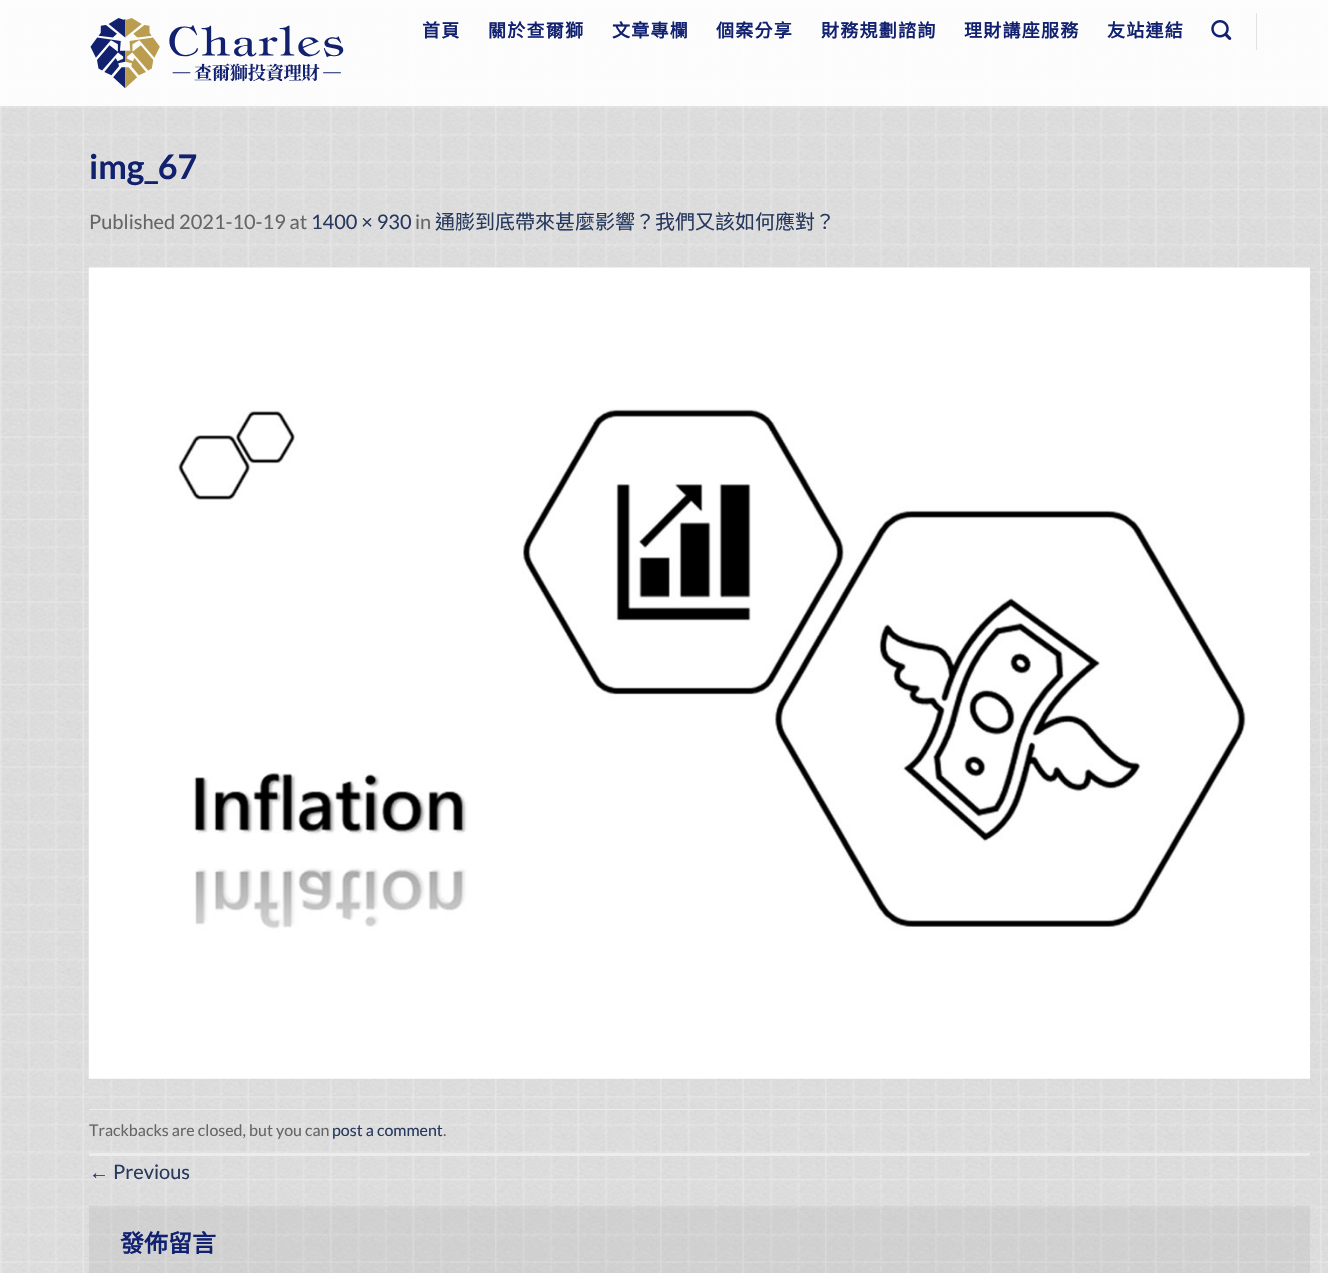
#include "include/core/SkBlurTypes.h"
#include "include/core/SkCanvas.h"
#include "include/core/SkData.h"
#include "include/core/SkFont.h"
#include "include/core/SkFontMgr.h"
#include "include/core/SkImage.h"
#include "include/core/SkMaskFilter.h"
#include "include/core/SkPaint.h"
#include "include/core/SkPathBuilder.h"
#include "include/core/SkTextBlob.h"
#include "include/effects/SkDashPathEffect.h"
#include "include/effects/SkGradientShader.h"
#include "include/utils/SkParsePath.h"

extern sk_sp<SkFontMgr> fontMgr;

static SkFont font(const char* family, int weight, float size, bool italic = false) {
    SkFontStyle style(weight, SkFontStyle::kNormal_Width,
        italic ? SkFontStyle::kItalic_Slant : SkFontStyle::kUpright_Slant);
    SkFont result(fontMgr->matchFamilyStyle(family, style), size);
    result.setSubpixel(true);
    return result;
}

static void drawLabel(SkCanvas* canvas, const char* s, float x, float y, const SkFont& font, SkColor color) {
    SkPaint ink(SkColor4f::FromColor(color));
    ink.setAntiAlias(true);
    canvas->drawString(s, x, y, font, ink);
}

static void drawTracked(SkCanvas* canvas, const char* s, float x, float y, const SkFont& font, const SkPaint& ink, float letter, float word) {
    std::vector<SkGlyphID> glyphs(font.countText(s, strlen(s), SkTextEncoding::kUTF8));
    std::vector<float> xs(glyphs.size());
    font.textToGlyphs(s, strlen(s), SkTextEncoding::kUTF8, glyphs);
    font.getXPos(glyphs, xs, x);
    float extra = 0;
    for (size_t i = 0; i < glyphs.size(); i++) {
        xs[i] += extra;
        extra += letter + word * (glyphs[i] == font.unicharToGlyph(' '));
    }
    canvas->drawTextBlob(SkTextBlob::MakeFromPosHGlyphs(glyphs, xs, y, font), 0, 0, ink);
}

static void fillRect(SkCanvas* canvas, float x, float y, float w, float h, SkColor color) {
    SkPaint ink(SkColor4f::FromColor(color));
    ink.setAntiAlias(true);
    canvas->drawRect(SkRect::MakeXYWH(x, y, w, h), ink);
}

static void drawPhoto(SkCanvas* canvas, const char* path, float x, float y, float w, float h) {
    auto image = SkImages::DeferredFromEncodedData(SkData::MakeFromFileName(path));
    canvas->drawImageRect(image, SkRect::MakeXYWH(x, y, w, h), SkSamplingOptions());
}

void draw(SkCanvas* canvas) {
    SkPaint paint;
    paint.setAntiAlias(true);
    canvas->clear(0xFFFFFFFF);
    drawPhoto(canvas, "assets/img1.png", 0, 0, 1328, 107);
    fillRect(canvas, 0, 0, 1328, 106, 0xE6FFFFFF);
    drawPhoto(canvas, "assets/img2.png", 90, 18, 254, 71);
    SkFont font1 = font("Noto Sans CJK TC", 700, 18);
    paint.setColor(0xFF11216F);
    drawTracked(canvas, "首頁", 422, 37, font1, paint, 1.25f, 0);
    drawTracked(canvas, "關於查爾獅", 488, 37, font1, paint, 1.25f, 0);
    drawTracked(canvas, "文章專欄", 612, 37, font1, paint, 1.25f, 0);
    drawTracked(canvas, "個案分享", 716, 37, font1, paint, 1.25f, 0);
    drawTracked(canvas, "財務規劃諮詢", 821, 37, font1, paint, 1.25f, 0);
    drawTracked(canvas, "理財講座服務", 964, 37, font1, paint, 1.25f, 0);
    drawTracked(canvas, "友站連結", 1107, 37, font1, paint, 1.25f, 0);
    drawPhoto(canvas, "assets/img3.png", 1211, 20, 21, 20);
    fillRect(canvas, 1256, 13, 1, 37, 0xFFE2E2E2);
    drawPhoto(canvas, "assets/img4.png", 0, 106, 1328, 1167);
    SkFont font2 = font("Lato", 700, 34);
    drawLabel(canvas, "img_67", 89, 179, font2, 0xFF11216F);
    SkFont font3 = font("Lato", 400, 20);
    drawLabel(canvas, "Published 2021-10-19 at", 89, 229, font3, 0xFF666666);
    drawLabel(canvas, "1400 × 930", 311, 229, font3, 0xFF28395E);
    drawLabel(canvas, "in", 415, 229, font3, 0xFF666666);
    SkFont font4 = font("Noto Sans CJK TC", 400, 20);
    drawLabel(canvas, "通膨到底帶來甚麼影響？我們又該如何應對？", 435, 229, font4, 0xFF28395E);
    drawPhoto(canvas, "assets/img5.png", 88, 267, 1222, 812);
    fillRect(canvas, 89, 1109, 1221, 1, 0xFFECECEC);
    fillRect(canvas, 89, 1153, 1221, 3, 0xFFECECEC);
    SkFont font5 = font("Lato", 400, 16);
    drawLabel(canvas, "Trackbacks are closed, but you can", 89, 1136, font5, 0xFF666666);
    drawLabel(canvas, "post a comment", 332, 1136, font5, 0xFF28395E);
    drawLabel(canvas, ".", 443, 1136, font5, 0xFF666666);
    SkFont font6 = font("Liberation Sans", 400, 20);
    drawLabel(canvas, "←", 89, 1179, font6, 0xFF28395E);
    drawLabel(canvas, "Previous", 113, 1179, font3, 0xFF28395E);
    fillRect(canvas, 89, 1206, 1221, 67, 0x0D000000);
    SkFont font7 = font("Noto Sans CJK TC", 700, 24);
    drawLabel(canvas, "發佈留言", 120, 1252, font7, 0xFF11216F);
}
